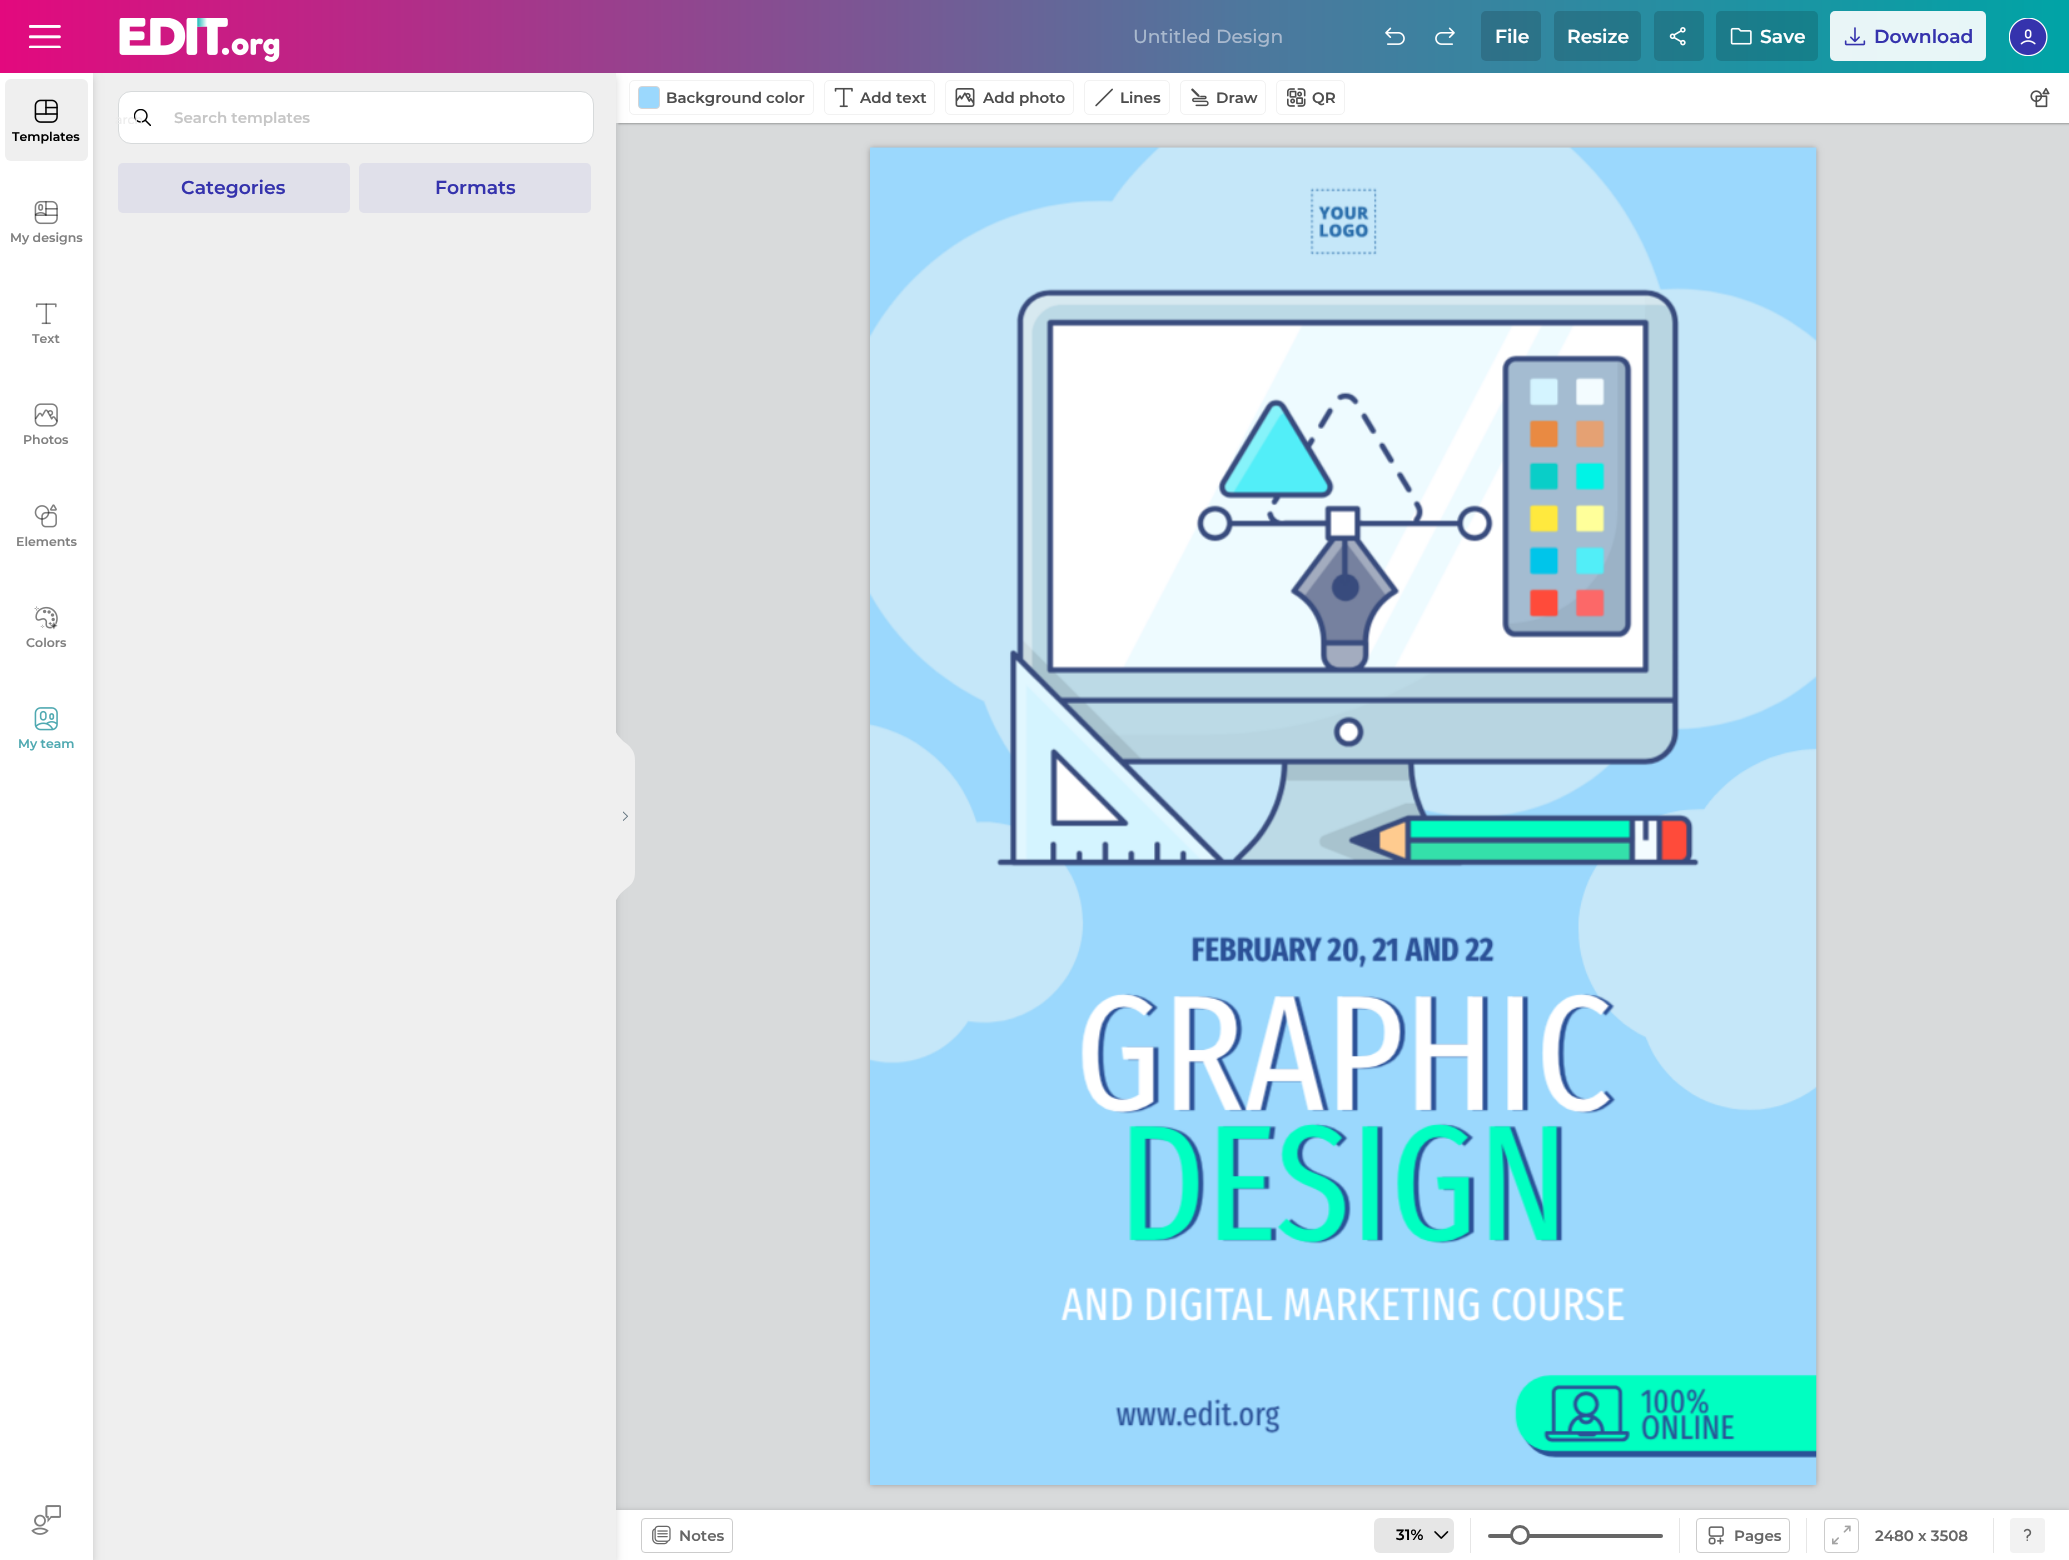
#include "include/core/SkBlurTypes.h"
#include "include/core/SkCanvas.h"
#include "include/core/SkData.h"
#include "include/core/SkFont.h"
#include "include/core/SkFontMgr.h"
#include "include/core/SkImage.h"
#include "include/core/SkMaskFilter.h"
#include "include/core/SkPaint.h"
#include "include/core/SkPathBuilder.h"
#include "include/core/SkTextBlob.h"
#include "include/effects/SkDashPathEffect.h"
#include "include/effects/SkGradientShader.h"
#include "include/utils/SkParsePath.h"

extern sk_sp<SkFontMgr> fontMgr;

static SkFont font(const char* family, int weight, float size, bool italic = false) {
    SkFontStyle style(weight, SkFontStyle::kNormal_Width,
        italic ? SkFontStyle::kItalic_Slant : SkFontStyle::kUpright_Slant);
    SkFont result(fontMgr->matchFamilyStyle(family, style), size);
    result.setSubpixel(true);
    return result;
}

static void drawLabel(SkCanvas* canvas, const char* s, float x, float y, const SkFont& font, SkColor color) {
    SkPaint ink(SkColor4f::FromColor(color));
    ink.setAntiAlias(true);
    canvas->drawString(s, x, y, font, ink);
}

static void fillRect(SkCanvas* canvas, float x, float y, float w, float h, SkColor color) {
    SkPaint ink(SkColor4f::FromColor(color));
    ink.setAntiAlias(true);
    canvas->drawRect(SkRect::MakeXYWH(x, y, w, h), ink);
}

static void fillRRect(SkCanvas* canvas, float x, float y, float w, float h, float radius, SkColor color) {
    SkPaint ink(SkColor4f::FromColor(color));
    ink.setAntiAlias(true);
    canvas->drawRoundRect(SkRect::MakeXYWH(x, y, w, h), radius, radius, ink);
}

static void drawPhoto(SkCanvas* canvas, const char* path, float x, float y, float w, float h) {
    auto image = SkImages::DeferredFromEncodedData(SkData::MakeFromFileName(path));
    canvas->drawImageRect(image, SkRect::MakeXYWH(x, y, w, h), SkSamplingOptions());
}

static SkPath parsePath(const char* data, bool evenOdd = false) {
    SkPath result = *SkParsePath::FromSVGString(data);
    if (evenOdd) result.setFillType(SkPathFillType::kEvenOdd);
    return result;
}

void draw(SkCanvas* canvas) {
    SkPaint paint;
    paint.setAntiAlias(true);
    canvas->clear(0xFFD8DADB);
    paint.setColor(0x4D000000);
    paint.setMaskFilter(SkMaskFilter::MakeBlur(kNormal_SkBlurStyle, 1));
    canvas->drawRect(SkRect::MakeXYWH(618, 74, 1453, 50), paint);
    paint.setMaskFilter(nullptr);
    fillRect(canvas, 616, 73, 1453, 50, 0xFFFFFFFF);
    paint.setColor(0x29000000);
    paint.setMaskFilter(SkMaskFilter::MakeBlur(kNormal_SkBlurStyle, 2.5f));
    canvas->drawRect(SkRect::MakeXYWH(616, 1510, 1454, 50), paint);
    paint.setMaskFilter(nullptr);
    fillRect(canvas, 616, 1510, 1453, 50, 0xFFFFFFFF);
    paint.setMaskFilter(SkMaskFilter::MakeBlur(kNormal_SkBlurStyle, 4));
    canvas->drawRect(SkRect::MakeXYWH(0, 76, 616, 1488), paint);
    paint.setMaskFilter(nullptr);
    paint.setColor(0xFFEFEFEF);
    canvas->drawPath(parsePath("M627 888C635 882 635 877 635 869V763C635 756 635 751 627 744C617 737 615 730 615 730V903C615 903 617 895 627 888"), paint);
    fillRect(canvas, 93, 73, 523, 1487, 0xFFEFEFEF);
    paint.setColor(0x29000000);
    paint.setMaskFilter(SkMaskFilter::MakeBlur(kNormal_SkBlurStyle, 4));
    canvas->drawRect(SkRect::MakeXYWH(0, 76, 93, 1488), paint);
    paint.setMaskFilter(nullptr);
    {
        const SkColor colors[] = {0xFFE3097E, 0xFF4E779D, 0xFF00A4A6};
        const float stops[] = {0, 0.6f, 1};
        const SkPoint ends[] = {{0, 36}, {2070, 36}};
        paint.setShader(SkGradientShader::MakeLinear(ends, colors, stops, 3, SkTileMode::kClamp));
        paint.setAlpha(255);
    }
    canvas->drawRect(SkRect::MakeXYWH(0, 0, 2069, 73), paint);
    drawPhoto(canvas, "assets/img1.png", 29, 25, 32, 23);
    drawPhoto(canvas, "assets/img2.png", 119, 18, 161, 44);
    SkFont font1 = font("Montserrat", 500, 18.75f);
    drawLabel(canvas, "Untitled Design", 1133, 43, font1, 0xFFA9B9CE);
    drawPhoto(canvas, "assets/img3.png", 1385, 27, 20, 18);
    drawPhoto(canvas, "assets/img4.png", 1435, 27, 20, 18);
    fillRRect(canvas, 1481, 11, 60, 50, 5, 0x26000000);
    SkFont font2 = font("Montserrat", 600, 18.75f);
    drawLabel(canvas, "File", 1495, 43, font2, 0xFFFFFFFF);
    fillRRect(canvas, 1554, 11, 87, 50, 5, 0x26000000);
    drawLabel(canvas, "Resize", 1567, 43, font2, 0xFFFFFFFF);
    fillRRect(canvas, 1654, 11, 50, 50, 5, 0x26000000);
    drawPhoto(canvas, "assets/img5.png", 1669, 27, 17, 19);
    fillRRect(canvas, 1716, 11, 102, 50, 5, 0x26000000);
    drawPhoto(canvas, "assets/img6.png", 1730, 27, 22, 18);
    drawLabel(canvas, "Save", 1760, 43, font2, 0xFFFFFFFF);
    fillRRect(canvas, 1830, 11, 156, 50, 5, 0xE6FFFFFF);
    drawPhoto(canvas, "assets/img7.png", 1844, 27, 22, 19);
    drawLabel(canvas, "Download", 1874, 43, font2, 0xFF3533AD);
    drawPhoto(canvas, "assets/img8.png", 2009, 18, 39, 38);
    fillRect(canvas, 0, 73, 93, 1487, 0xFFFFFFFF);
    fillRRect(canvas, 5, 79, 83, 82, 6, 0xFFEFEFEF);
    drawPhoto(canvas, "assets/img9.png", 34, 99, 24, 24);
    paint.setShader(nullptr);
    paint.setColor(0xFFFFFFFF);
    canvas->drawRoundRect(SkRect::MakeXYWH(118.5f, 91.5f, 475, 52), 12.5f, 12.5f, paint);
    paint.setStroke(true);
    paint.setStrokeWidth(1);
    paint.setColor(0xFFD7DADB);
    canvas->drawRoundRect(SkRect::MakeXYWH(118.5f, 91.5f, 475, 52), 12.5f, 12.5f, paint);
    drawPhoto(canvas, "assets/img17.png", 134, 109, 17, 17);
    SkFont font3 = font("Montserrat", 400, 12.5f);
    drawLabel(canvas, "arch", 115, 124, font3, 0xFFECECEC);
    SkFont font4 = font("Montserrat", 600, 12.5f);
    drawLabel(canvas, "Templates", 12, 141, font4, 0xFF000000);
    drawPhoto(canvas, "assets/img10.png", 34, 200, 24, 25);
    drawLabel(canvas, "My designs", 10, 242, font4, 0xFF808080);
    drawPhoto(canvas, "assets/img11.png", 35, 303, 22, 22);
    drawLabel(canvas, "Text", 32, 343, font4, 0xFF808080);
    drawPhoto(canvas, "assets/img12.png", 34, 403, 24, 24);
    drawLabel(canvas, "Photos", 23, 444, font4, 0xFF808080);
    drawPhoto(canvas, "assets/img13.png", 34, 504, 23, 24);
    drawLabel(canvas, "Elements", 16, 546, font4, 0xFF808080);
    drawPhoto(canvas, "assets/img14.png", 34, 606, 24, 24);
    drawLabel(canvas, "Colors", 26, 647, font4, 0xFF808080);
    drawPhoto(canvas, "assets/img15.png", 34, 707, 24, 24);
    drawLabel(canvas, "My team", 18, 748, font4, 0xFF4FA9B1);
    drawPhoto(canvas, "assets/img16.png", 31, 1505, 30, 30);
    SkFont font5 = font("Montserrat", 600, 15);
    drawLabel(canvas, "Search templates", 174, 123, font5, 0xFFC6C6C6);
    fillRRect(canvas, 118, 163, 232, 50, 5, 0xFFE0E0EA);
    drawLabel(canvas, "Categories", 181, 194, font2, 0xFF3533AD);
    fillRRect(canvas, 359, 163, 232, 50, 5, 0xFFE0E0EA);
    drawLabel(canvas, "Formats", 435, 194, font2, 0xFF3533AD);
    drawPhoto(canvas, "assets/img18.png", 623, 811, 5, 10);
    paint.setColor(0xFFF2F2F2);
    canvas->drawRoundRect(SkRect::MakeXYWH(629.5f, 80.5f, 184, 34), 4.5f, 4.5f, paint);
    paint.setStroke(false);
    paint.setColor(0xFF9BD8FD);
    canvas->drawRoundRect(SkRect::MakeXYWH(638.5f, 86.5f, 21, 22), 3.5f, 3.5f, paint);
    paint.setStroke(true);
    paint.setColor(0xFFD6D4D4);
    canvas->drawRoundRect(SkRect::MakeXYWH(638.5f, 86.5f, 21, 22), 3.5f, 3.5f, paint);
    drawLabel(canvas, "Background color", 666, 103, font5, 0xFF4D4D4D);
    paint.setColor(0xFFF2F2F2);
    canvas->drawRoundRect(SkRect::MakeXYWH(824.5f, 80.5f, 110, 34), 4.5f, 4.5f, paint);
    drawPhoto(canvas, "assets/img19.png", 834, 87, 19, 21);
    drawLabel(canvas, "Add text", 860, 103, font5, 0xFF4D4D4D);
    canvas->drawRoundRect(SkRect::MakeXYWH(945.5f, 80.5f, 128, 34), 4.5f, 4.5f, paint);
    drawPhoto(canvas, "assets/img20.png", 955, 88, 20, 19);
    drawLabel(canvas, "Add photo", 983, 103, font5, 0xFF4D4D4D);
    canvas->drawRoundRect(SkRect::MakeXYWH(1084.5f, 80.5f, 85, 34), 4.5f, 4.5f, paint);
    drawPhoto(canvas, "assets/img21.png", 1095, 88, 18, 19);
    drawLabel(canvas, "Lines", 1120, 103, font5, 0xFF4D4D4D);
    canvas->drawRoundRect(SkRect::MakeXYWH(1180.5f, 80.5f, 85, 34), 4.5f, 4.5f, paint);
    drawPhoto(canvas, "assets/img22.png", 1191, 88, 18, 19);
    drawLabel(canvas, "Draw", 1216, 103, font5, 0xFF4D4D4D);
    canvas->drawRoundRect(SkRect::MakeXYWH(1276.5f, 80.5f, 68, 34), 4.5f, 4.5f, paint);
    drawPhoto(canvas, "assets/img23.png", 1287, 88, 19, 19);
    drawLabel(canvas, "QR", 1312, 103, font5, 0xFF4D4D4D);
    drawPhoto(canvas, "assets/img24.png", 2030, 87, 20, 21);
    paint.setStroke(false);
    paint.setColor(0x4D000000);
    paint.setMaskFilter(SkMaskFilter::MakeBlur(kNormal_SkBlurStyle, 3));
    canvas->drawRect(SkRect::MakeXYWH(870, 148, 946, 1337), paint);
    paint.setMaskFilter(nullptr);
    drawPhoto(canvas, "assets/img25.png", 870, 147, 947, 1338);
    paint.setStroke(true);
    paint.setColor(0xFFCCCCCC);
    canvas->drawRoundRect(SkRect::MakeXYWH(641.5f, 1518.5f, 91, 34), 3.5f, 3.5f, paint);
    drawPhoto(canvas, "assets/img26.png", 652, 1525, 19, 20);
    drawLabel(canvas, "Notes", 679, 1541, font5, 0xFF666666);
    fillRect(canvas, 1470, 1518, 1, 35, 0xFFE6E6E6);
    fillRRect(canvas, 1374, 1518, 80, 35, 6, 0xFFE6E6E6);
    drawLabel(canvas, "31%", 1396, 1540, font5, 0xFF000000);
    drawPhoto(canvas, "assets/img27.png", 1434, 1531, 15, 8);
    fillRRect(canvas, 1488, 1534, 175, 4, 2, 0xFF666666);
    paint.setStroke(false);
    paint.setColor(0xFFFFFFFF);
    canvas->drawCircle(1520, 1535, 8.5f, paint);
    paint.setStroke(true);
    paint.setStrokeWidth(3);
    paint.setColor(0xFF666666);
    canvas->drawCircle(1520, 1535, 8.5f, paint);
    fillRect(canvas, 1679, 1518, 1, 35, 0xFFE6E6E6);
    paint.setStrokeWidth(1);
    paint.setColor(0xFFCCCCCC);
    canvas->drawRoundRect(SkRect::MakeXYWH(1696.5f, 1518.5f, 93, 34), 3.5f, 3.5f, paint);
    drawPhoto(canvas, "assets/img28.png", 1708, 1526, 16, 19);
    drawLabel(canvas, "Pages", 1734, 1541, font5, 0xFF666666);
    fillRect(canvas, 1806, 1518, 1, 35, 0xFFE6E6E6);
    canvas->drawRoundRect(SkRect::MakeXYWH(1824.5f, 1518.5f, 34, 34), 3.5f, 3.5f, paint);
    drawPhoto(canvas, "assets/img29.png", 1832, 1525, 19, 20);
    drawLabel(canvas, "2480 x 3508", 1875, 1541, font5, 0xFF666666);
    fillRect(canvas, 1993, 1518, 1, 35, 0xFFE6E6E6);
    fillRRect(canvas, 2010, 1518, 35, 35, 4, 0xFFF2F2F2);
    drawPhoto(canvas, "assets/img30.png", 2023, 1528, 9, 13);
}
